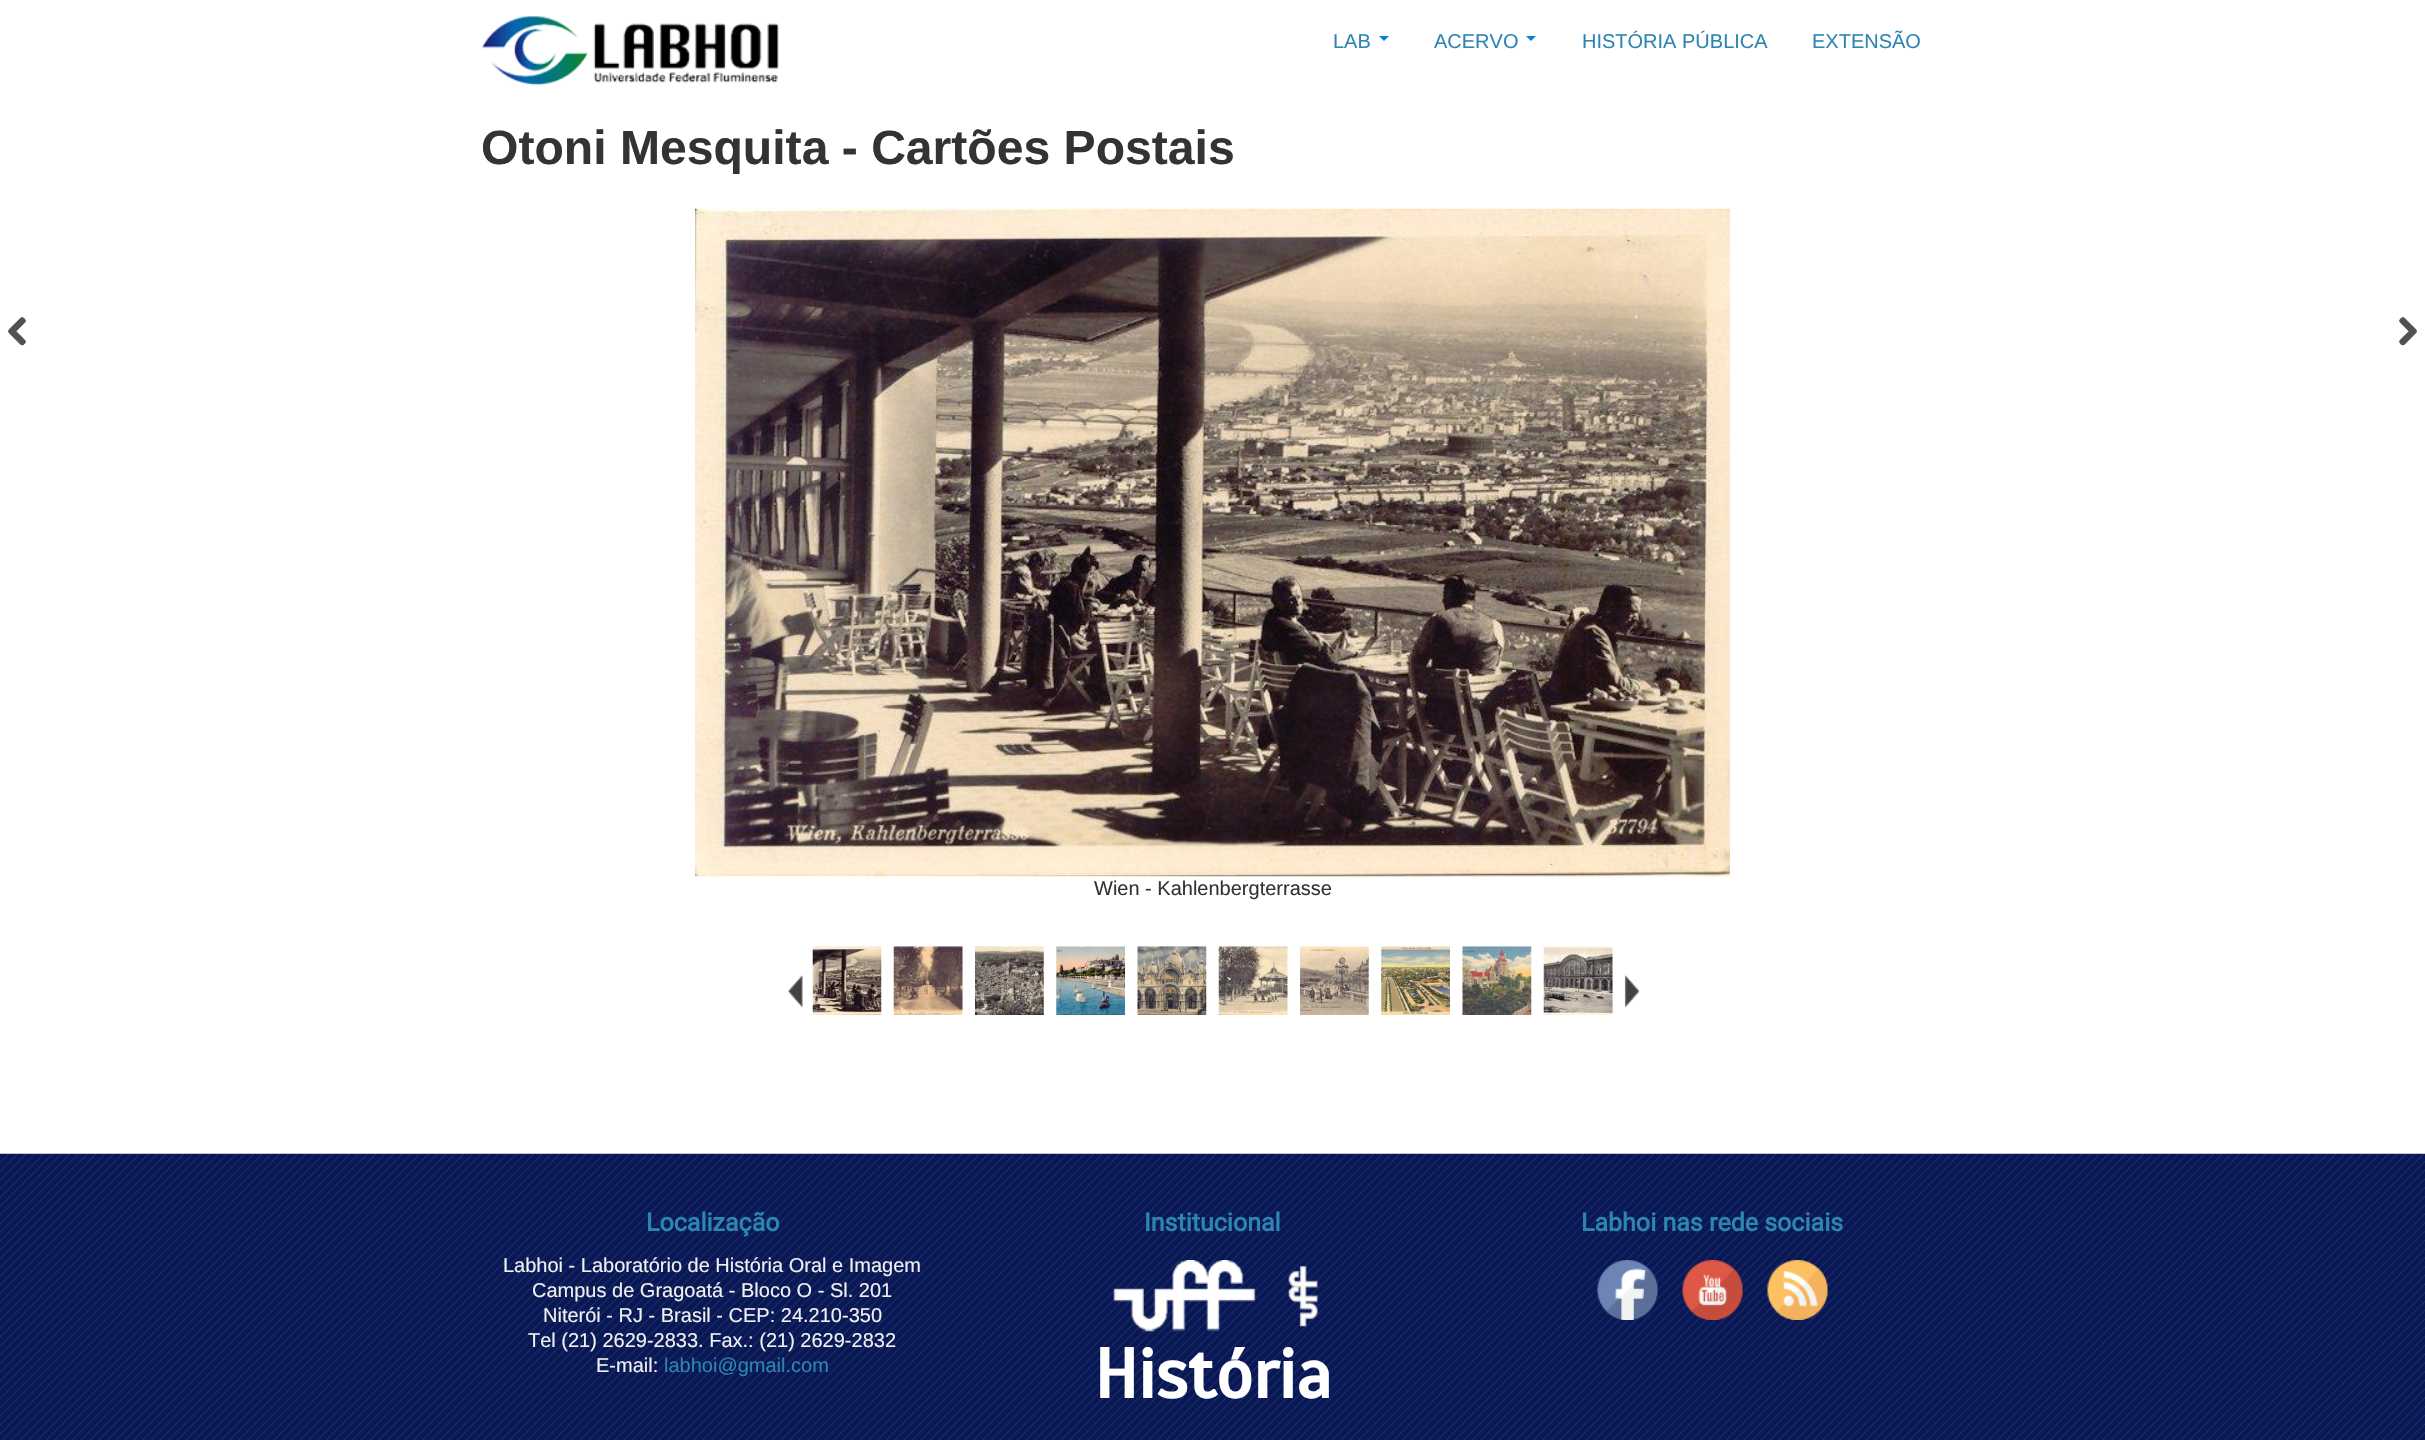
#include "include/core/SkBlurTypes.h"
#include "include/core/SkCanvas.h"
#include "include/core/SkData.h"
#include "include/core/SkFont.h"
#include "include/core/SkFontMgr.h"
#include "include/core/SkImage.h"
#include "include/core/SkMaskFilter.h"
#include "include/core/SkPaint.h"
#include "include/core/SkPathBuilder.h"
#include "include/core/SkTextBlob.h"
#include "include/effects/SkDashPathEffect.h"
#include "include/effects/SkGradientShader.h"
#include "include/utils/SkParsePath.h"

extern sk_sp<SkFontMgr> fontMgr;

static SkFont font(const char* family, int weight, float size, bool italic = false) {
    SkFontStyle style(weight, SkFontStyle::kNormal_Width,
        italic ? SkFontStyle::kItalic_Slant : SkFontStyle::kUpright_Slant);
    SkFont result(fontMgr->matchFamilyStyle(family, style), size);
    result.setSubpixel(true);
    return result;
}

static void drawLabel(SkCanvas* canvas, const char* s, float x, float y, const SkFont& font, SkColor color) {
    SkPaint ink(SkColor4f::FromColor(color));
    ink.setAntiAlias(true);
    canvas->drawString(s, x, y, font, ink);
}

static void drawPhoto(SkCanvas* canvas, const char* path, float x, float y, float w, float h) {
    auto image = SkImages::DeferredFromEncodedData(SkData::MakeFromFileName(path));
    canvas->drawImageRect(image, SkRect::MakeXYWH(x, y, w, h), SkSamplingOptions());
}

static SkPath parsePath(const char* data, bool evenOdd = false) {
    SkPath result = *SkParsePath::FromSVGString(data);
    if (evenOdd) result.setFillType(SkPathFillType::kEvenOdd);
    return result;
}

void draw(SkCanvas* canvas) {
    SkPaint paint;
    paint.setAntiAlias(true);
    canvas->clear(0xFFFFFFFF);
    drawPhoto(canvas, "assets/img1.png", 482, 16, 297, 70);
    SkFont font1 = font("Liberation Sans", 400, 20);
    drawLabel(canvas, "LAB", 1333, 48, font1, 0xFF2D86B2);
    paint.setColor(0xFF0088CC);
    canvas->drawPath(parsePath("M1379 36H1389L1384 41Z"), paint);
    drawLabel(canvas, "ACERVO", 1434, 48, font1, 0xFF2D86B2);
    canvas->drawPath(parsePath("M1526 36H1536L1531 41Z"), paint);
    drawLabel(canvas, "HISTÓRIA PÚBLICA", 1582, 48, font1, 0xFF2D86B2);
    drawLabel(canvas, "EXTENSÃO", 1812, 48, font1, 0xFF2D86B2);
    SkFont font2 = font("Liberation Sans", 700, 48.1f);
    drawLabel(canvas, "Otoni Mesquita - Cartões Postais", 481, 164, font2, 0xFF333333);
    drawPhoto(canvas, "assets/img2.png", 8, 317, 18, 29);
    drawPhoto(canvas, "assets/img3.png", 2399, 317, 18, 29);
    drawPhoto(canvas, "assets/img4.png", 695, 208, 1035, 669);
    drawLabel(canvas, "Wien - Kahlenbergterrasse", 1094, 895, font1, 0xFF333333);
    drawPhoto(canvas, "assets/img5.png", 787, 975, 16, 33);
    drawPhoto(canvas, "assets/img6.png", 812, 946, 70, 69);
    drawPhoto(canvas, "assets/img7.png", 893, 946, 70, 69);
    drawPhoto(canvas, "assets/img8.png", 975, 946, 69, 69);
    drawPhoto(canvas, "assets/img9.png", 1056, 946, 69, 69);
    drawPhoto(canvas, "assets/img10.png", 1137, 946, 70, 69);
    drawPhoto(canvas, "assets/img11.png", 1218, 946, 70, 69);
    drawPhoto(canvas, "assets/img12.png", 1300, 946, 69, 69);
    drawPhoto(canvas, "assets/img13.png", 1381, 946, 69, 69);
    drawPhoto(canvas, "assets/img14.png", 1462, 946, 70, 69);
    drawPhoto(canvas, "assets/img15.png", 1543, 946, 70, 69);
    drawPhoto(canvas, "assets/img16.png", 1624, 975, 16, 33);
    drawPhoto(canvas, "assets/img17.png", 0, 1153, 2425, 287);
    SkFont font3 = font("Roboto", 700, 25);
    drawLabel(canvas, "Localização", 646, 1231, font3, 0xFF2D86B2);
    drawLabel(canvas, "Labhoi - Laboratório de História Oral e Imagem", 503, 1272, font1, 0xFFF0F0F0);
    drawLabel(canvas, "Campus de Gragoatá - Bloco O - Sl. 201", 532, 1297, font1, 0xFFF0F0F0);
    drawLabel(canvas, "Niterói - RJ - Brasil - CEP: 24.210-350", 543, 1322, font1, 0xFFF0F0F0);
    drawLabel(canvas, "Tel (21) 2629-2833. Fax.: (21) 2629-2832", 528, 1347, font1, 0xFFF0F0F0);
    drawLabel(canvas, "E-mail:", 596, 1372, font1, 0xFFF0F0F0);
    drawLabel(canvas, "labhoi@gmail.com", 664, 1372, font1, 0xFF2D86B2);
    drawLabel(canvas, "Institucional", 1144, 1231, font3, 0xFF2D86B2);
    drawPhoto(canvas, "assets/img18.png", 1113, 1260, 143, 72);
    drawPhoto(canvas, "assets/img19.png", 1288, 1266, 30, 61);
    SkFont font4 = font("Scada", 700, 70);
    drawLabel(canvas, "História", 1094, 1398, font4, 0xFFFFFFFF);
    drawLabel(canvas, "Labhoi nas rede sociais", 1581, 1231, font3, 0xFF2D86B2);
    drawPhoto(canvas, "assets/img20.png", 1597, 1260, 61, 60);
    drawPhoto(canvas, "assets/img21.png", 1682, 1260, 61, 60);
    drawPhoto(canvas, "assets/img22.png", 1767, 1260, 61, 60);
}
